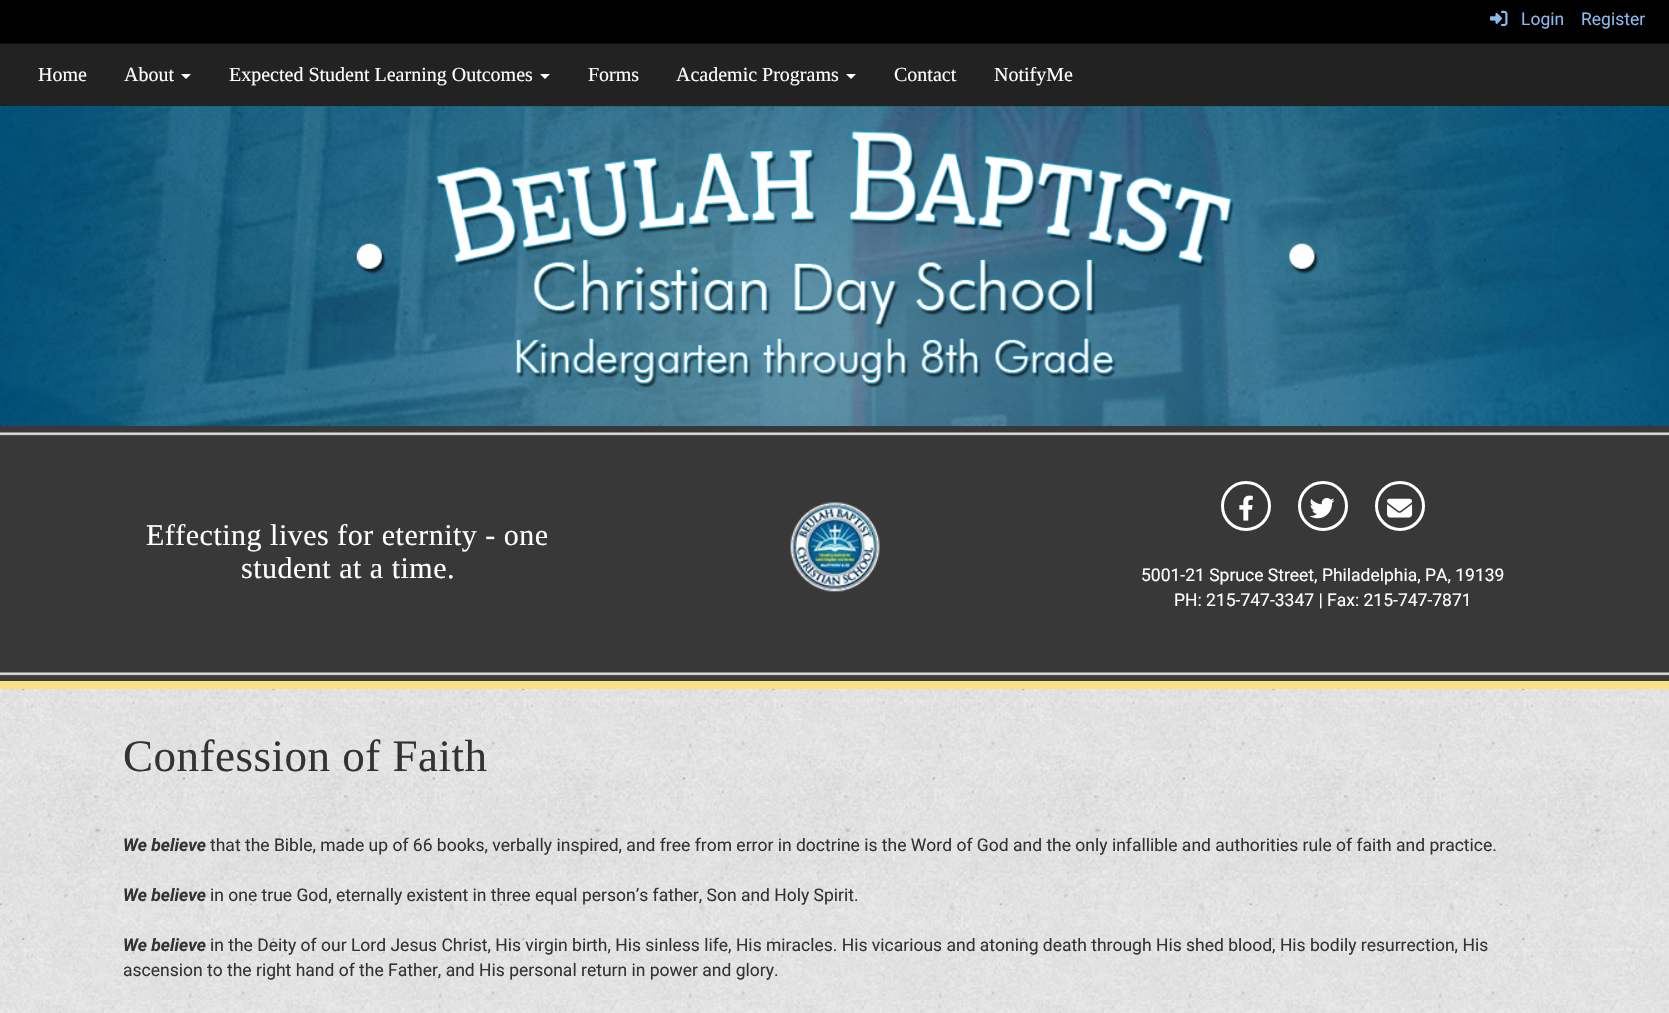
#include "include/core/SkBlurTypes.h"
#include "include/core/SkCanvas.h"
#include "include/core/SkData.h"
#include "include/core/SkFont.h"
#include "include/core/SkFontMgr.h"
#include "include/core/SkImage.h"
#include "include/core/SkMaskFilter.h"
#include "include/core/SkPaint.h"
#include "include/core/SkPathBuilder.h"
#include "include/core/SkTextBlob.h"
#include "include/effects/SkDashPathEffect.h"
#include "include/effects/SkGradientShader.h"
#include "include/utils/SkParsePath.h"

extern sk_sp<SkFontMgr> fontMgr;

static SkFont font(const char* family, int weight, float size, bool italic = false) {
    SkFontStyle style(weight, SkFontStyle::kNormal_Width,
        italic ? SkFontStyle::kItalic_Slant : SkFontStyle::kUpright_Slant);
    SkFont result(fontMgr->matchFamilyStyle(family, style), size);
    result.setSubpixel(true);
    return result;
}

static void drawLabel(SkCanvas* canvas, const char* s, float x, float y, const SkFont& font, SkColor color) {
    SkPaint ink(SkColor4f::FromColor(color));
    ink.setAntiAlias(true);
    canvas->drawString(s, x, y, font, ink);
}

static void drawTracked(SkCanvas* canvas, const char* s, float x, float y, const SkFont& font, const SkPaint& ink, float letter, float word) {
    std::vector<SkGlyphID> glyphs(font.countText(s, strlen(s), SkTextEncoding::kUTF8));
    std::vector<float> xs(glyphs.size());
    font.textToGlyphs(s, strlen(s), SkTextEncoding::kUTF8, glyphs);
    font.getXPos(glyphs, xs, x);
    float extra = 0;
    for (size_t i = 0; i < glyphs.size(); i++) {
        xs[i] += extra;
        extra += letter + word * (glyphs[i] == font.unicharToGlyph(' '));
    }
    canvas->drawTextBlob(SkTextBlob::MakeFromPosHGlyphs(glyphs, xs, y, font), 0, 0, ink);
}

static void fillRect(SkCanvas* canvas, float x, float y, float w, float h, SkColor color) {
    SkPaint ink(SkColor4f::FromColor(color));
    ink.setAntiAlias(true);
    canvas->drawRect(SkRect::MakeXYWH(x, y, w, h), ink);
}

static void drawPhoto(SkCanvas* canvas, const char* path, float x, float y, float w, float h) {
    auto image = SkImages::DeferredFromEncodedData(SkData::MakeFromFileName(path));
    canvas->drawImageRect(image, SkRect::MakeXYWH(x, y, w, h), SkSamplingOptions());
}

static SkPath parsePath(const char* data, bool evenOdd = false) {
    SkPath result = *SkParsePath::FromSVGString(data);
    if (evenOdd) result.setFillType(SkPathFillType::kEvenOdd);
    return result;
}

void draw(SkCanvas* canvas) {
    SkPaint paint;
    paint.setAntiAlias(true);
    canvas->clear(0xFFFFFFFF);
    drawPhoto(canvas, "assets/img1.png", 0, 689, 1669, 324);
    fillRect(canvas, 0, 0, 1669, 44, 0xFF000000);
    drawPhoto(canvas, "assets/img2.png", 1490, 10, 18, 17);
    SkFont font1 = font("Roboto", 400, 17.5f);
    drawLabel(canvas, "Login", 1521, 25, font1, 0xFF8BB9EE);
    drawLabel(canvas, "Register", 1581, 25, font1, 0xFF8BB9EE);
    drawPhoto(canvas, "assets/img3.png", 0, 43, 1669, 64);
    fillRect(canvas, 0, 44, 1669, 62, 0xFF222222);
    SkFont font2 = font("Liberation Serif", 400, 20);
    drawLabel(canvas, "Home", 38, 81, font2, 0xFFFFFFFF);
    drawLabel(canvas, "About", 124, 81, font2, 0xFFFFFFFF);
    paint.setColor(0xFFFFFFFF);
    canvas->drawPath(parsePath("M181 74H191L186 79Z"), paint);
    drawLabel(canvas, "Expected Student Learning Outcomes", 229, 81, font2, 0xFFFFFFFF);
    canvas->drawPath(parsePath("M540 74H550L545 79Z"), paint);
    drawLabel(canvas, "Forms", 588, 81, font2, 0xFFFFFFFF);
    drawLabel(canvas, "Academic Programs", 676, 81, font2, 0xFFFFFFFF);
    canvas->drawPath(parsePath("M846 74H856L851 79Z"), paint);
    drawLabel(canvas, "Contact", 894, 81, font2, 0xFFFFFFFF);
    drawLabel(canvas, "NotifyMe", 994, 81, font2, 0xFFFFFFFF);
    drawPhoto(canvas, "assets/img4.png", 0, 106, 1669, 320);
    drawPhoto(canvas, "assets/img5.png", 356, 130, 963, 258);
    fillRect(canvas, 0, 426, 1669, 246, 0xFF383838);
    drawPhoto(canvas, "assets/img6.png", 0, 432, 1669, 4);
    drawPhoto(canvas, "assets/img7.png", 0, 672, 1669, 9);
    SkFont font3 = font("Liberation Serif", 400, 30);
    drawTracked(canvas, "Effecting lives for eternity - one", 146, 545, font3, paint, 0.5f, 0);
    drawTracked(canvas, "student at a time.", 241, 578, font3, paint, 0.5f, 0);
    drawPhoto(canvas, "assets/img8.png", 790, 502, 90, 90);
    paint.setStroke(true);
    paint.setStrokeWidth(3);
    canvas->drawCircle(1246, 506, 23.5f, paint);
    drawPhoto(canvas, "assets/img9.png", 1239, 495, 14, 26);
    canvas->drawCircle(1323, 506, 23.5f, paint);
    drawPhoto(canvas, "assets/img10.png", 1309, 498, 26, 21);
    canvas->drawCircle(1400, 506, 23.5f, paint);
    drawPhoto(canvas, "assets/img11.png", 1387, 498, 26, 20);
    drawLabel(canvas, "5001-21 Spruce Street, Philadelphia, PA, 19139", 1141, 581, font1, 0xFFFFFFFF);
    drawLabel(canvas, "PH: 215-747-3347 | Fax: 215-747-7871", 1174, 606, font1, 0xFFFFFFFF);
    fillRect(canvas, 0, 681, 1669, 8, 0xFFF8E285);
    SkFont font4 = font("Liberation Serif", 400, 45);
    paint.setStroke(false);
    paint.setColor(0xFF333333);
    drawTracked(canvas, "Confession of Faith", 123, 771, font4, paint, 0.5f, 0);
    SkFont font5 = font("Roboto", 700, 17.5f, true);
    drawLabel(canvas, "We believe", 123, 851, font5, 0xFF333333);
    drawLabel(canvas, "that the Bible, made up of 66 books, verbally inspired, and free from error in doctrine is the Word of God and the only infallible and authorities rule of faith and practice.", 210, 851, font1, 0xFF333333);
    drawLabel(canvas, "We believe", 123, 901, font5, 0xFF333333);
    drawLabel(canvas, "in one true God, eternally existent in three equal person’s father, Son and Holy Spirit.", 210, 901, font1, 0xFF333333);
    drawLabel(canvas, "We believe", 123, 951, font5, 0xFF333333);
    drawLabel(canvas, "in the Deity of our Lord Jesus Christ, His virgin birth, His sinless life, His miracles. His vicarious and atoning death through His shed blood, His bodily resurrection, His", 210, 951, font1, 0xFF333333);
    drawLabel(canvas, "ascension to the right hand of the Father, and His personal return in power and glory.", 123, 976, font1, 0xFF333333);
}
